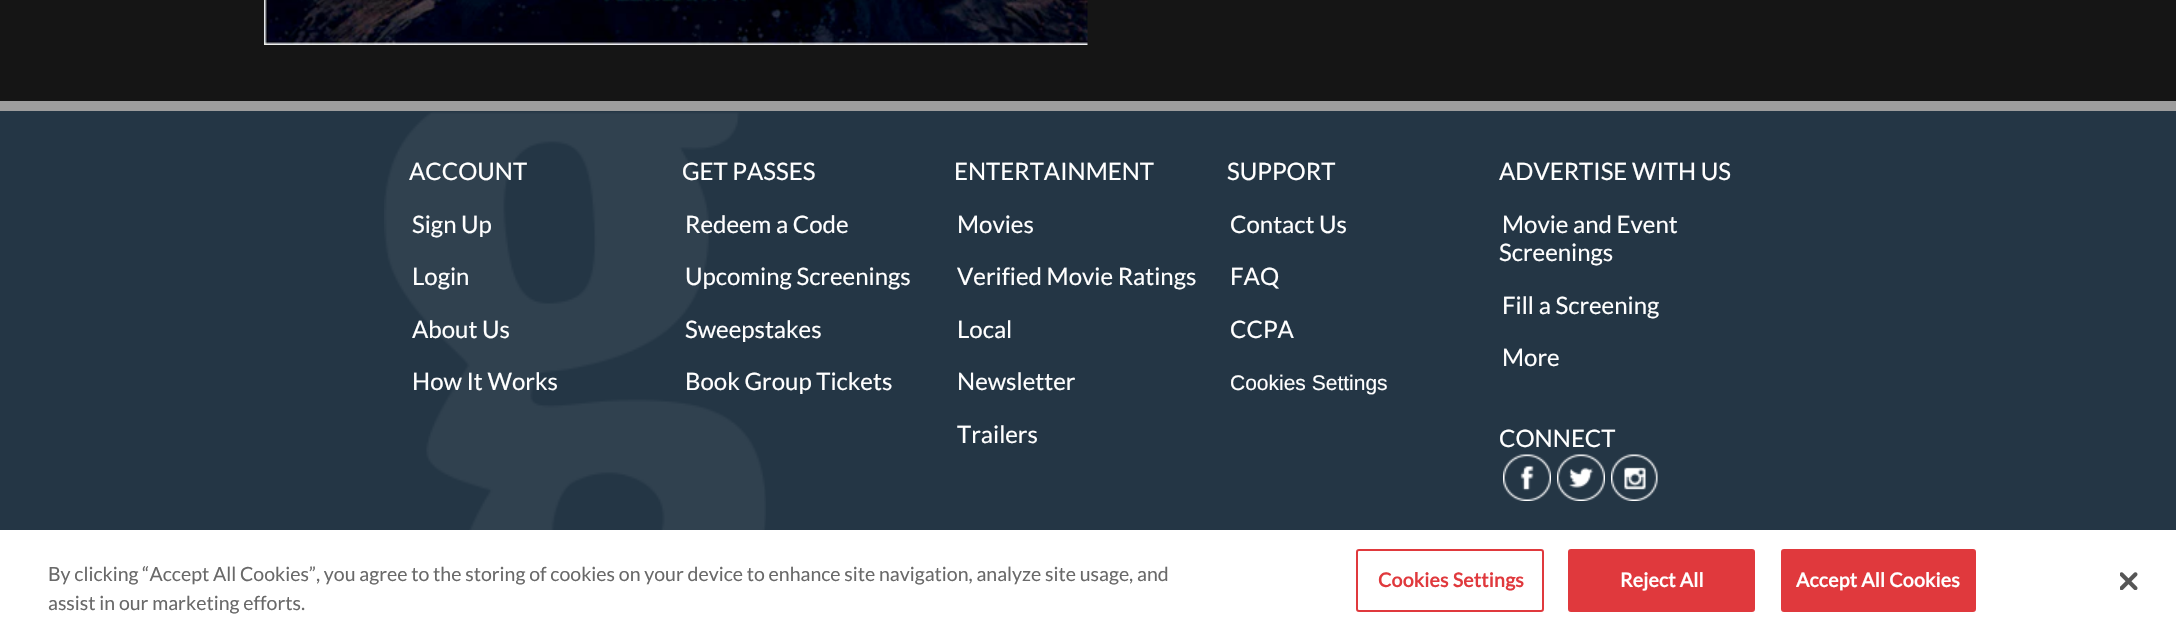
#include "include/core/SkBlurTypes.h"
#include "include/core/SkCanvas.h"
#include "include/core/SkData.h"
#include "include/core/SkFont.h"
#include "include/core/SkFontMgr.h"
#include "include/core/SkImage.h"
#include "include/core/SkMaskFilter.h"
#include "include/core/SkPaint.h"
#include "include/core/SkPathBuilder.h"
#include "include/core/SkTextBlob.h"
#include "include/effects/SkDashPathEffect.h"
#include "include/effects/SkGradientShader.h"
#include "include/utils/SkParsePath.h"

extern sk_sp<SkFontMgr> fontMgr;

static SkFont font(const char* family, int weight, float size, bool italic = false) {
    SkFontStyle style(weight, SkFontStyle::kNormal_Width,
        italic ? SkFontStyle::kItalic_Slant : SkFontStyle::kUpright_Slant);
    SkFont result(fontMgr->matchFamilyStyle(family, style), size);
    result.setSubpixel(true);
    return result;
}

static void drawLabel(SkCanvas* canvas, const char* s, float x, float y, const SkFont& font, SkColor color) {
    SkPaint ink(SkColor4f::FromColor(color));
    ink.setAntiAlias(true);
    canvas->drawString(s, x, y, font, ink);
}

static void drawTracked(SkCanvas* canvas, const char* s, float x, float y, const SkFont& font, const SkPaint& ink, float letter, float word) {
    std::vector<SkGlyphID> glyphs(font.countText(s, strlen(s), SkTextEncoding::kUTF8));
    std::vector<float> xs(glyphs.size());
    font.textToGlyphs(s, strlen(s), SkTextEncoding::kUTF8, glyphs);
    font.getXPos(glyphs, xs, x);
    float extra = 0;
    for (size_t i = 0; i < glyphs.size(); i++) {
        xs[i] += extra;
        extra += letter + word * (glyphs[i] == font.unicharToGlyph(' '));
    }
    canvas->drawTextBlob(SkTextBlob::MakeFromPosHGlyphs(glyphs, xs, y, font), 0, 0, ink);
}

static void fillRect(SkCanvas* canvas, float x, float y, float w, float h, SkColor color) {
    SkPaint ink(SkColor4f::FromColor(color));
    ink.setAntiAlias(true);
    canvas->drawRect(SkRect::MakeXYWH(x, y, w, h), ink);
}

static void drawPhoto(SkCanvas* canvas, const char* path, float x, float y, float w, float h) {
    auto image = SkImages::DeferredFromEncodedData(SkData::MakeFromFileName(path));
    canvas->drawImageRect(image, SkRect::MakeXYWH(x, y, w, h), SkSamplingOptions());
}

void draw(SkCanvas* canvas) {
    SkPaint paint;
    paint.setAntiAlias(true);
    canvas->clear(0xFF151515);
    drawPhoto(canvas, "assets/img1.png", 264, 0, 824, 45);
    fillRect(canvas, 0, 111, 2176, 419, 0xFF243645);
    fillRect(canvas, 0, 101, 2176, 10, 0xFF9D9D9D);
    drawPhoto(canvas, "assets/img2.png", 384, 112, 382, 418);
    SkFont font1 = font("Lato", 400, 24);
    drawLabel(canvas, "ACCOUNT", 409, 180, font1, 0xFFFFFFFF);
    drawLabel(canvas, "Sign Up", 412, 233, font1, 0xFFFFFFFF);
    drawLabel(canvas, "Login", 412, 285, font1, 0xFFFFFFFF);
    drawLabel(canvas, "About Us", 412, 338, font1, 0xFFFFFFFF);
    drawLabel(canvas, "How It Works", 412, 390, font1, 0xFFFFFFFF);
    drawLabel(canvas, "GET PASSES", 682, 180, font1, 0xFFFFFFFF);
    drawLabel(canvas, "Redeem a Code", 685, 233, font1, 0xFFFFFFFF);
    drawLabel(canvas, "Upcoming Screenings", 685, 285, font1, 0xFFFFFFFF);
    drawLabel(canvas, "Sweepstakes", 685, 338, font1, 0xFFFFFFFF);
    drawLabel(canvas, "Book Group Tickets", 685, 390, font1, 0xFFFFFFFF);
    drawLabel(canvas, "ENTERTAINMENT", 954, 180, font1, 0xFFFFFFFF);
    drawLabel(canvas, "Movies", 957, 233, font1, 0xFFFFFFFF);
    drawLabel(canvas, "Verified Movie Ratings", 957, 285, font1, 0xFFFFFFFF);
    drawLabel(canvas, "Local", 957, 338, font1, 0xFFFFFFFF);
    drawLabel(canvas, "Newsletter", 957, 390, font1, 0xFFFFFFFF);
    drawLabel(canvas, "Trailers", 957, 443, font1, 0xFFFFFFFF);
    drawLabel(canvas, "SUPPORT", 1227, 180, font1, 0xFFFFFFFF);
    drawLabel(canvas, "Contact Us", 1230, 233, font1, 0xFFFFFFFF);
    drawLabel(canvas, "FAQ", 1230, 285, font1, 0xFFFFFFFF);
    drawLabel(canvas, "CCPA", 1230, 338, font1, 0xFFFFFFFF);
    SkFont font2 = font("Liberation Sans", 400, 21);
    drawLabel(canvas, "Cookies Settings", 1230, 390, font2, 0xFFFFFFFF);
    drawLabel(canvas, "ADVERTISE WITH US", 1499, 180, font1, 0xFFFFFFFF);
    drawLabel(canvas, "Movie and Event", 1502, 233, font1, 0xFFFFFFFF);
    drawLabel(canvas, "Screenings", 1499, 261, font1, 0xFFFFFFFF);
    drawLabel(canvas, "Fill a Screening", 1502, 314, font1, 0xFFFFFFFF);
    drawLabel(canvas, "More", 1502, 366, font1, 0xFFFFFFFF);
    drawLabel(canvas, "CONNECT", 1499, 447, font1, 0xFFFFFFFF);
    drawPhoto(canvas, "assets/img3.png", 1503, 454, 48, 47);
    drawPhoto(canvas, "assets/img4.png", 1557, 454, 48, 47);
    drawPhoto(canvas, "assets/img5.png", 1611, 454, 47, 47);
    fillRect(canvas, 0, 530, 2176, 105, 0xFFFFFFFF);
    SkFont font3 = font("Lato", 400, 19.5f);
    drawLabel(canvas, "By clicking “Accept All Cookies”, you agree to the storing of cookies on your device to enhance site navigation, analyze site usage, and", 48, 581, font3, 0xFF696969);
    drawLabel(canvas, "assist in our marketing efforts.", 48, 610, font3, 0xFF696969);
    paint.setStroke(true);
    paint.setStrokeWidth(2);
    paint.setColor(0xFFE0393D);
    canvas->drawRoundRect(SkRect::MakeXYWH(1357, 550, 186, 61), 2, 2, paint);
    SkFont font4 = font("Lato", 700, 19.5f);
    paint.setStroke(false);
    drawTracked(canvas, "Cookies Settings", 1378, 587, font4, paint, 0.25f, 0);
    canvas->drawRoundRect(SkRect::MakeXYWH(1569, 550, 185, 61), 2, 2, paint);
    paint.setStroke(true);
    canvas->drawRoundRect(SkRect::MakeXYWH(1569, 550, 185, 61), 2, 2, paint);
    paint.setStroke(false);
    paint.setColor(0xFFFFFFFF);
    drawTracked(canvas, "Reject All", 1620, 587, font4, paint, 0.25f, 0);
    paint.setColor(0xFFE0393D);
    canvas->drawRoundRect(SkRect::MakeXYWH(1782, 550, 193, 61), 2, 2, paint);
    paint.setStroke(true);
    canvas->drawRoundRect(SkRect::MakeXYWH(1782, 550, 193, 61), 2, 2, paint);
    paint.setStroke(false);
    paint.setColor(0xFFFFFFFF);
    drawTracked(canvas, "Accept All Cookies", 1796, 587, font4, paint, 0.25f, 0);
    drawPhoto(canvas, "assets/img6.png", 2120, 572, 18, 18);
}
